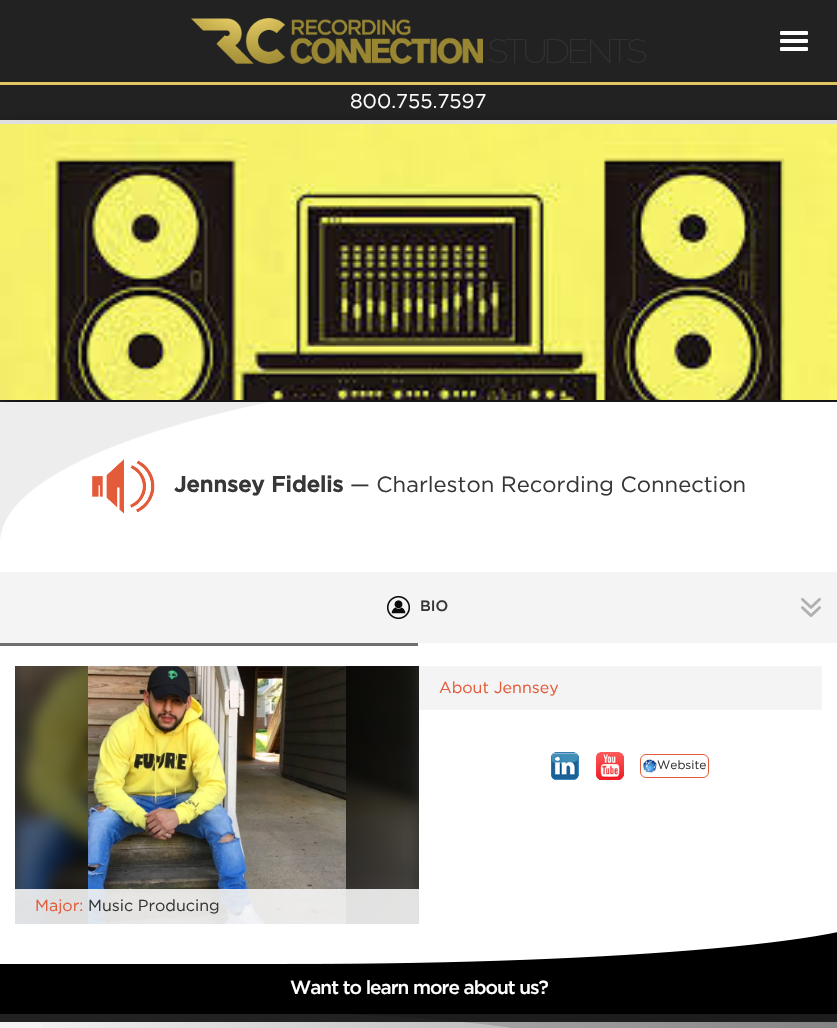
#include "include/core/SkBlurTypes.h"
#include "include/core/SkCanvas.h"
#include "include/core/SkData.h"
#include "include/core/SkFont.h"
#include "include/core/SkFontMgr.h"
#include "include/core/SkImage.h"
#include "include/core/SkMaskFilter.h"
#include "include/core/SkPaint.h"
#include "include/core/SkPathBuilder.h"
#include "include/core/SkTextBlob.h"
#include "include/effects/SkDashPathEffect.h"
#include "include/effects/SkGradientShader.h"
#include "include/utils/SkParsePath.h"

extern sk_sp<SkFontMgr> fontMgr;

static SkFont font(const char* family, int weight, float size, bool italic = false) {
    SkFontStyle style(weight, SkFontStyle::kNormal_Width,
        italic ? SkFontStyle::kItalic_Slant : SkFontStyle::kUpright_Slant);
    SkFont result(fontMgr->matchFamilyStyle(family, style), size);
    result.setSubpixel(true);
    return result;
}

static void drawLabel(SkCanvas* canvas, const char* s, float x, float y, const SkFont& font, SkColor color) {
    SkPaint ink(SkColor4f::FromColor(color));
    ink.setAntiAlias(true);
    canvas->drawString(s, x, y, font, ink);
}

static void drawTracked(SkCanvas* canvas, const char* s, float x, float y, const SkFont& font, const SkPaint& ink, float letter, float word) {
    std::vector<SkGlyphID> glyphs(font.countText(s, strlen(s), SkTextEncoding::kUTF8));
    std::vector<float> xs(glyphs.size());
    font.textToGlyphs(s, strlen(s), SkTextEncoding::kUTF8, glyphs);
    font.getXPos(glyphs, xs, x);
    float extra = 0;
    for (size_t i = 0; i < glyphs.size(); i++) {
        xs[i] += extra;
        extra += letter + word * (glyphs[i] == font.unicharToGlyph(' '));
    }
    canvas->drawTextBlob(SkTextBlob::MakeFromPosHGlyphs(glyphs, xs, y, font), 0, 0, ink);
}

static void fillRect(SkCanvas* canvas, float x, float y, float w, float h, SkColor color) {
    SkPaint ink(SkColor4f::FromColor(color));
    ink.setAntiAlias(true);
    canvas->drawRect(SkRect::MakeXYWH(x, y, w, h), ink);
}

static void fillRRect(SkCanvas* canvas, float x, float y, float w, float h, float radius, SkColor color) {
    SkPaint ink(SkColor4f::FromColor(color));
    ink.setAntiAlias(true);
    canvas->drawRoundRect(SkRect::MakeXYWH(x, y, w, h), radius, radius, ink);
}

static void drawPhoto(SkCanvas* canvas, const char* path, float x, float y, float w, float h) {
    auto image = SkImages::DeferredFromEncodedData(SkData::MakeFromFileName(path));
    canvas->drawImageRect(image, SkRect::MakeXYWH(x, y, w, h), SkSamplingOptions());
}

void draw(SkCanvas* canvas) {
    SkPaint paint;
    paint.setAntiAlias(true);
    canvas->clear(0xFFFFFFFF);
    fillRect(canvas, 0, 0, 837, 402, 0xFF222222);
    drawPhoto(canvas, "assets/img1.png", 191, 18, 292, 46);
    drawPhoto(canvas, "assets/img2.png", 489, 39, 157, 24);
    fillRRect(canvas, 780, 31, 28, 4, 1, 0xFFFFFFFF);
    fillRRect(canvas, 780, 39, 28, 4, 1, 0xFFFFFFFF);
    fillRRect(canvas, 780, 47, 28, 4, 1, 0xFFFFFFFF);
    fillRect(canvas, 0, 82, 837, 3, 0xFFE0C761);
    SkFont font1 = font("Gotham", 400, 20);
    drawLabel(canvas, "800.755.7597", 350, 108, font1, 0xFFFFFFFF);
    drawPhoto(canvas, "assets/img4.png", 0, 402, 271, 137);
    canvas->save();
    canvas->clipRect(SkRect::MakeXYWH(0, 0, 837, 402));
    paint.setColor(0x80000000);
    paint.setMaskFilter(SkMaskFilter::MakeBlur(kNormal_SkBlurStyle, 6));
    canvas->drawRect(SkRect::MakeXYWH(5, 125, 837, 280), paint);
    paint.setMaskFilter(nullptr);
    canvas->restore();
    drawPhoto(canvas, "assets/img3.png", 0, 124, 837, 276);
    fillRect(canvas, 0, 120, 837, 4, 0xFFDEDEDE);
    drawPhoto(canvas, "assets/img5.png", 92, 459, 63, 55);
    SkFont font2 = font("Gotham", 700, 22);
    drawLabel(canvas, "Jennsey Fidelis", 174, 492, font2, 0xFF373737);
    SkFont font3 = font("Gotham", 400, 22);
    drawLabel(canvas, "— Charleston Recording Connection", 350, 492, font3, 0xFF373737);
    fillRect(canvas, 0, 572, 837, 71, 0xFFF4F4F4);
    drawPhoto(canvas, "assets/img6.png", 387, 596, 23, 23);
    SkFont font4 = font("Gotham", 500, 15);
    drawLabel(canvas, "BIO", 420, 611, font4, 0xFF373737);
    fillRect(canvas, 0, 643, 418, 3, 0xFF6F6F6F);
    drawPhoto(canvas, "assets/img7.png", 801, 598, 20, 19);
    fillRect(canvas, 419, 666, 403, 44, 0xFFF4F4F4);
    SkFont font5 = font("Gotham", 400, 16);
    drawLabel(canvas, "About Jennsey", 439, 693, font5, 0xFFE55A39);
    drawPhoto(canvas, "assets/img8.png", 551, 752, 28, 28);
    drawPhoto(canvas, "assets/img9.png", 596, 752, 28, 28);
    paint.setStroke(true);
    paint.setStrokeWidth(1);
    paint.setColor(0xFFE55A39);
    canvas->drawRoundRect(SkRect::MakeXYWH(640.5f, 754.5f, 68, 23), 5.5f, 5.5f, paint);
    drawPhoto(canvas, "assets/img10.png", 643, 759, 14, 14);
    SkFont font6 = font("Gotham", 400, 12);
    drawLabel(canvas, "Website", 657, 769, font6, 0xFF373737);
    fillRect(canvas, 15, 666, 404, 258, 0xFF333333);
    drawPhoto(canvas, "assets/img12.png", 15, 666, 404, 258);
    fillRect(canvas, 0, 964, 837, 50, 0xFF000000);
    fillRect(canvas, 0, 1014, 837, 8, 0xFF222222);
    drawPhoto(canvas, "assets/img13.png", 287, 932, 550, 32);
    drawPhoto(canvas, "assets/img15.png", 41, 1022, 796, 6);
    drawPhoto(canvas, "assets/img14.png", 354, 1014, 483, 14);
    fillRect(canvas, 0, 1022, 41, 6, 0xFFF4F4F4);
    canvas->save();
    canvas->clipRect(SkRect::MakeXYWH(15, 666, 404, 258));
    paint.setStroke(false);
    paint.setColor(0x80000000);
    paint.setMaskFilter(SkMaskFilter::MakeBlur(kNormal_SkBlurStyle, 50));
    canvas->drawRect(SkRect::MakeXYWH(48, 626, 338, 338), paint);
    paint.setMaskFilter(nullptr);
    canvas->restore();
    drawPhoto(canvas, "assets/img11.png", 88, 666, 258, 258);
    fillRect(canvas, 15, 889, 404, 35, 0xE6F4F4F4);
    drawLabel(canvas, "Major:", 35, 911, font5, 0xFFE55A39);
    drawLabel(canvas, "Music Producing", 88, 911, font5, 0xFF373737);
    SkFont font7 = font("Gotham", 500, 19);
    paint.setColor(0xFFFFFFFF);
    drawTracked(canvas, "Want to learn more about us?", 290, 994, font7, paint, -1, 0);
}
